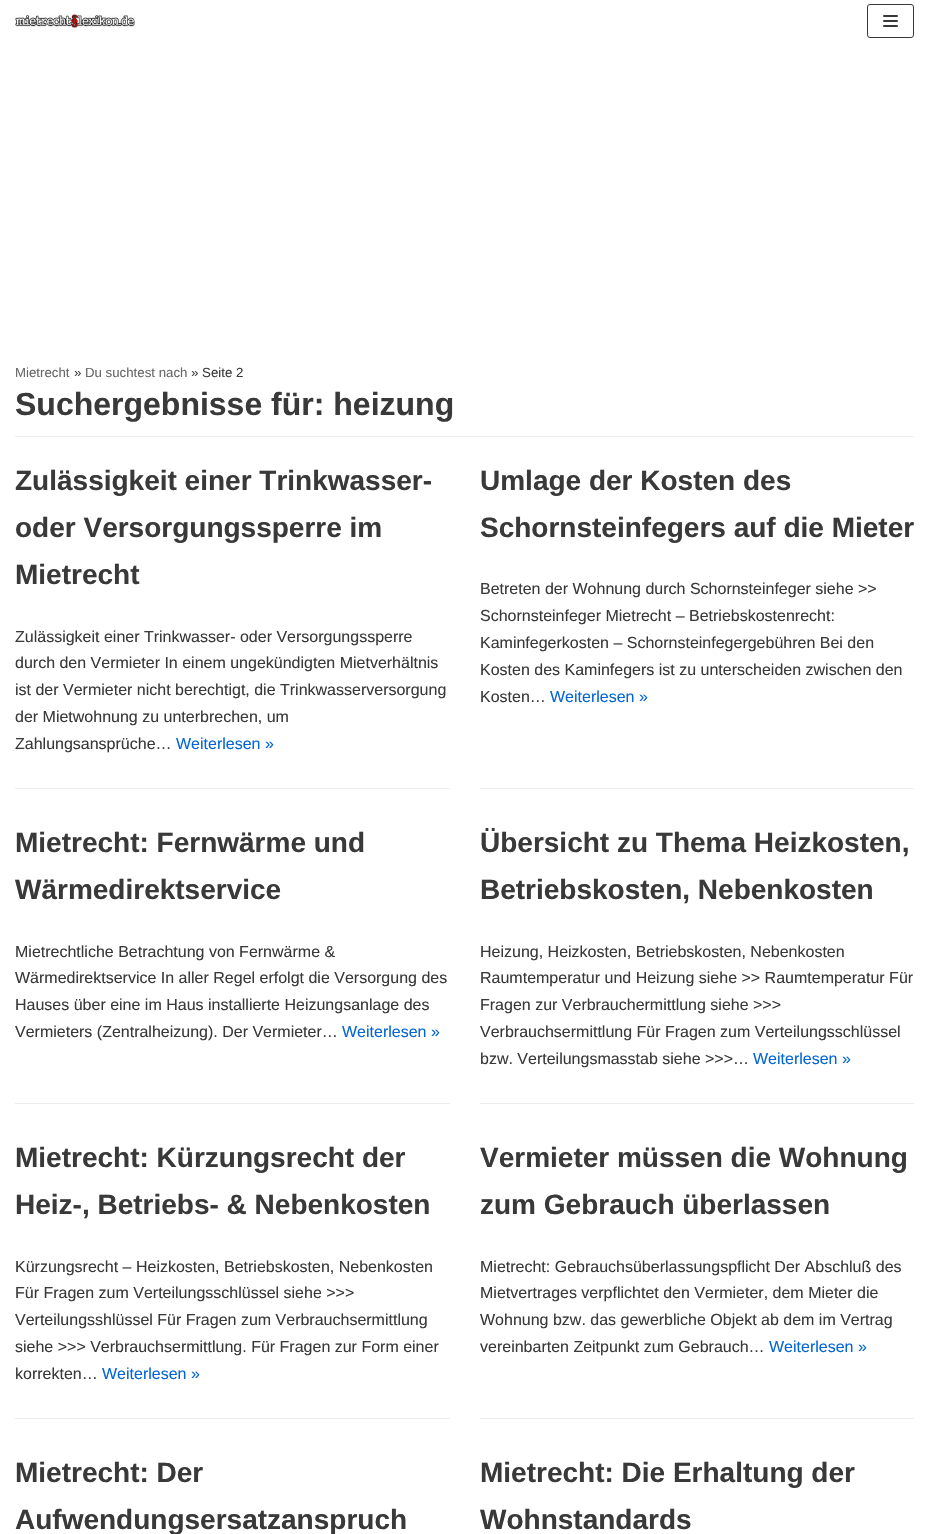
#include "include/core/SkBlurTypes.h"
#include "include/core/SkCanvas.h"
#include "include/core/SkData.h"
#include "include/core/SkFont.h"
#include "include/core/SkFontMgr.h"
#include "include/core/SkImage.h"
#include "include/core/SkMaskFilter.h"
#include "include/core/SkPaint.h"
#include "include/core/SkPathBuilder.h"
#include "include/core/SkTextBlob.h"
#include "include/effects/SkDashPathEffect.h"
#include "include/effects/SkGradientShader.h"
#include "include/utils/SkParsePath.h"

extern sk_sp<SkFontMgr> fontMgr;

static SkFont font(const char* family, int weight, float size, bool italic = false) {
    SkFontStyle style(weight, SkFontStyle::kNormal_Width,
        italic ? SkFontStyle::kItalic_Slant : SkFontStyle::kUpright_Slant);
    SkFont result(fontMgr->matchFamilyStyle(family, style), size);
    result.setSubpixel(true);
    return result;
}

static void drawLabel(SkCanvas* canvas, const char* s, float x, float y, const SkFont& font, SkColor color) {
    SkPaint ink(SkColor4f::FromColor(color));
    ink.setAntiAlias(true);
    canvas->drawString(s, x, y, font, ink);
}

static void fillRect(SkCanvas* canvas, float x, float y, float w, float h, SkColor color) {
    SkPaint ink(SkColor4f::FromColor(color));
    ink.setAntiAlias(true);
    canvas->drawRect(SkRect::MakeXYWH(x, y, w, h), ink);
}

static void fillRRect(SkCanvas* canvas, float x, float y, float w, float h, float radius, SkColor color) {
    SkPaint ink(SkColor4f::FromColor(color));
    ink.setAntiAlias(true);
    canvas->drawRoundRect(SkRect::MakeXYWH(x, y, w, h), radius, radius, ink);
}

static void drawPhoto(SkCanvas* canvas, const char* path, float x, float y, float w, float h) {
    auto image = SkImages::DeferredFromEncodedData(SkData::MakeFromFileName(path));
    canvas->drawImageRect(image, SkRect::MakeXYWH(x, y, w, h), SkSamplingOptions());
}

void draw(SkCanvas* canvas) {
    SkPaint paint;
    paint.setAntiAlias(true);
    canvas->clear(0xFFFFFFFF);
    drawPhoto(canvas, "assets/img1.png", 15, 14, 120, 14);
    paint.setStroke(true);
    paint.setStrokeWidth(1);
    paint.setColor(0xFF393939);
    canvas->drawRoundRect(SkRect::MakeXYWH(867.5f, 4.5f, 46, 33), 2.5f, 2.5f, paint);
    fillRRect(canvas, 883, 15, 15, 2, 1, 0xFF393939);
    fillRRect(canvas, 883, 20, 15, 2, 1, 0xFF393939);
    fillRRect(canvas, 883, 25, 15, 2, 1, 0xFF393939);
    fillRect(canvas, 15, 436, 899, 1, 0xFFEDEDED);
    SkFont font1 = font("Liberation Sans", 400, 13.25f);
    drawLabel(canvas, "Mietrecht", 15, 377, font1, 0xFF676767);
    drawLabel(canvas, "»", 74, 377, font1, 0xFF393939);
    drawLabel(canvas, "Du suchtest nach", 85, 377, font1, 0xFF676767);
    drawLabel(canvas, "» Seite 2", 191, 377, font1, 0xFF393939);
    SkFont font2 = font("Liberation Sans", 700, 32);
    drawLabel(canvas, "Suchergebnisse für: heizung", 15, 415, font2, 0xFF393939);
    fillRect(canvas, 15, 788, 435, 1, 0xFFEDEDED);
    SkFont font3 = font("Liberation Sans", 700, 28);
    drawLabel(canvas, "Zulässigkeit einer Trinkwasser-", 15, 490, font3, 0xFF393939);
    drawLabel(canvas, "oder Versorgungssperre im", 15, 537, font3, 0xFF393939);
    drawLabel(canvas, "Mietrecht", 15, 584, font3, 0xFF393939);
    SkFont font4 = font("Liberation Sans", 400, 16);
    drawLabel(canvas, "Zulässigkeit einer Trinkwasser- oder Versorgungssperre", 15, 642, font4, 0xFF393939);
    drawLabel(canvas, "durch den Vermieter In einem ungekündigten Mietverhältnis", 15, 668, font4, 0xFF393939);
    drawLabel(canvas, "ist der Vermieter nicht berechtigt, die Trinkwasserversorgung", 15, 695, font4, 0xFF393939);
    drawLabel(canvas, "der Mietwohnung zu unterbrechen, um", 15, 722, font4, 0xFF393939);
    drawLabel(canvas, "Zahlungsansprüche…", 15, 749, font4, 0xFF393939);
    drawLabel(canvas, "Weiterlesen »", 176, 749, font4, 0xFF0366D6);
    fillRect(canvas, 480, 788, 434, 1, 0xFFEDEDED);
    drawLabel(canvas, "Umlage der Kosten des", 480, 490, font3, 0xFF393939);
    drawLabel(canvas, "Schornsteinfegers auf die Mieter", 480, 537, font3, 0xFF393939);
    drawLabel(canvas, "Betreten der Wohnung durch Schornsteinfeger siehe >>", 480, 594, font4, 0xFF393939);
    drawLabel(canvas, "Schornsteinfeger Mietrecht – Betriebskostenrecht:", 480, 621, font4, 0xFF393939);
    drawLabel(canvas, "Kaminfegerkosten – Schornsteinfegergebühren Bei den", 480, 648, font4, 0xFF393939);
    drawLabel(canvas, "Kosten des Kaminfegers ist zu unterscheiden zwischen den", 480, 675, font4, 0xFF393939);
    drawLabel(canvas, "Kosten…", 480, 702, font4, 0xFF393939);
    drawLabel(canvas, "Weiterlesen »", 550, 702, font4, 0xFF0366D6);
    fillRect(canvas, 15, 1103, 435, 1, 0xFFEDEDED);
    drawLabel(canvas, "Mietrecht: Fernwärme und", 15, 852, font3, 0xFF393939);
    drawLabel(canvas, "Wärmedirektservice", 15, 899, font3, 0xFF393939);
    drawLabel(canvas, "Mietrechtliche Betrachtung von Fernwärme &", 15, 957, font4, 0xFF393939);
    drawLabel(canvas, "Wärmedirektservice In aller Regel erfolgt die Versorgung des", 15, 983, font4, 0xFF393939);
    drawLabel(canvas, "Hauses über eine im Haus installierte Heizungsanlage des", 15, 1010, font4, 0xFF393939);
    drawLabel(canvas, "Vermieters (Zentralheizung). Der Vermieter…", 15, 1037, font4, 0xFF393939);
    drawLabel(canvas, "Weiterlesen »", 342, 1037, font4, 0xFF0366D6);
    fillRect(canvas, 480, 1103, 434, 1, 0xFFEDEDED);
    drawLabel(canvas, "Übersicht zu Thema Heizkosten,", 480, 852, font3, 0xFF393939);
    drawLabel(canvas, "Betriebskosten, Nebenkosten", 480, 899, font3, 0xFF393939);
    drawLabel(canvas, "Heizung, Heizkosten, Betriebskosten, Nebenkosten", 480, 957, font4, 0xFF393939);
    drawLabel(canvas, "Raumtemperatur und Heizung siehe >> Raumtemperatur Für", 480, 983, font4, 0xFF393939);
    drawLabel(canvas, "Fragen zur Verbrauchermittlung siehe >>>", 480, 1010, font4, 0xFF393939);
    drawLabel(canvas, "Verbrauchsermittlung Für Fragen zum Verteilungsschlüssel", 480, 1037, font4, 0xFF393939);
    drawLabel(canvas, "bzw. Verteilungsmasstab siehe >>>…", 480, 1064, font4, 0xFF393939);
    drawLabel(canvas, "Weiterlesen »", 753, 1064, font4, 0xFF0366D6);
    fillRect(canvas, 15, 1418, 435, 1, 0xFFEDEDED);
    drawLabel(canvas, "Mietrecht: Kürzungsrecht der", 15, 1167, font3, 0xFF393939);
    drawLabel(canvas, "Heiz-, Betriebs- & Nebenkosten", 15, 1214, font3, 0xFF393939);
    drawLabel(canvas, "Kürzungsrecht – Heizkosten, Betriebskosten, Nebenkosten", 15, 1272, font4, 0xFF393939);
    drawLabel(canvas, "Für Fragen zum Verteilungsschlüssel siehe >>>", 15, 1298, font4, 0xFF393939);
    drawLabel(canvas, "Verteilungsshlüssel Für Fragen zum Verbrauchsermittlung", 15, 1325, font4, 0xFF393939);
    drawLabel(canvas, "siehe >>> Verbrauchsermittlung. Für Fragen zur Form einer", 15, 1352, font4, 0xFF393939);
    drawLabel(canvas, "korrekten…", 15, 1379, font4, 0xFF393939);
    drawLabel(canvas, "Weiterlesen »", 102, 1379, font4, 0xFF0366D6);
    fillRect(canvas, 480, 1418, 434, 1, 0xFFEDEDED);
    drawLabel(canvas, "Vermieter müssen die Wohnung", 480, 1167, font3, 0xFF393939);
    drawLabel(canvas, "zum Gebrauch überlassen", 480, 1214, font3, 0xFF393939);
    drawLabel(canvas, "Mietrecht: Gebrauchsüberlassungspflicht Der Abschluß des", 480, 1272, font4, 0xFF393939);
    drawLabel(canvas, "Mietvertrages verpflichtet den Vermieter, dem Mieter die", 480, 1298, font4, 0xFF393939);
    drawLabel(canvas, "Wohnung bzw. das gewerbliche Objekt ab dem im Vertrag", 480, 1325, font4, 0xFF393939);
    drawLabel(canvas, "vereinbarten Zeitpunkt zum Gebrauch…", 480, 1352, font4, 0xFF393939);
    drawLabel(canvas, "Weiterlesen »", 769, 1352, font4, 0xFF0366D6);
    drawLabel(canvas, "Mietrecht: Der", 15, 1482, font3, 0xFF393939);
    drawLabel(canvas, "Aufwendungsersatzanspruch", 15, 1529, font3, 0xFF393939);
    drawLabel(canvas, "Mietrecht: Die Erhaltung der", 480, 1482, font3, 0xFF393939);
    drawLabel(canvas, "Wohnstandards", 480, 1529, font3, 0xFF393939);
}
